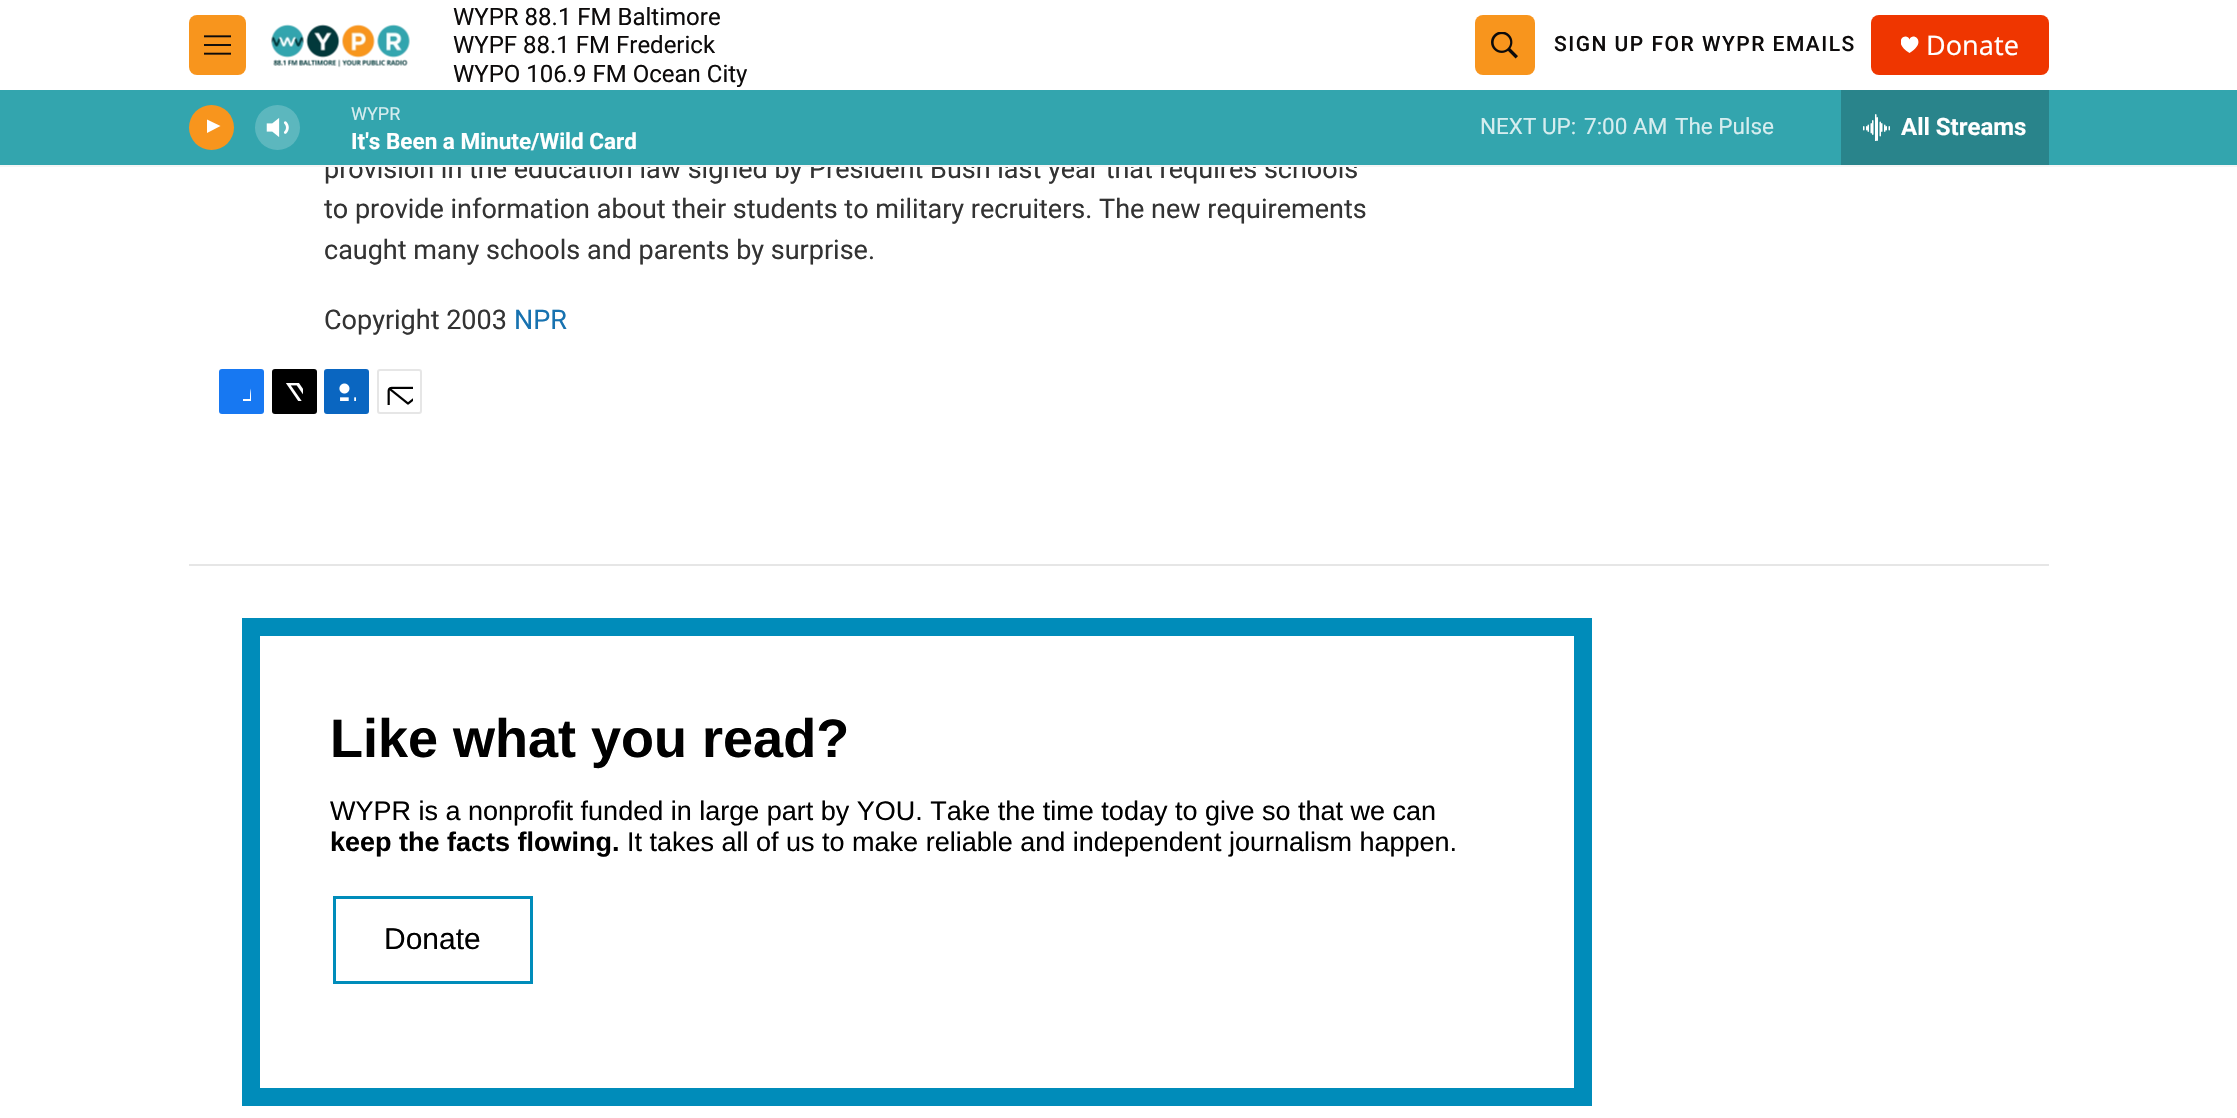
#include "include/core/SkBlurTypes.h"
#include "include/core/SkCanvas.h"
#include "include/core/SkData.h"
#include "include/core/SkFont.h"
#include "include/core/SkFontMgr.h"
#include "include/core/SkImage.h"
#include "include/core/SkMaskFilter.h"
#include "include/core/SkPaint.h"
#include "include/core/SkPathBuilder.h"
#include "include/core/SkTextBlob.h"
#include "include/effects/SkDashPathEffect.h"
#include "include/effects/SkGradientShader.h"
#include "include/utils/SkParsePath.h"

extern sk_sp<SkFontMgr> fontMgr;

static SkFont font(const char* family, int weight, float size, bool italic = false) {
    SkFontStyle style(weight, SkFontStyle::kNormal_Width,
        italic ? SkFontStyle::kItalic_Slant : SkFontStyle::kUpright_Slant);
    SkFont result(fontMgr->matchFamilyStyle(family, style), size);
    result.setSubpixel(true);
    return result;
}

static void drawLabel(SkCanvas* canvas, const char* s, float x, float y, const SkFont& font, SkColor color) {
    SkPaint ink(SkColor4f::FromColor(color));
    ink.setAntiAlias(true);
    canvas->drawString(s, x, y, font, ink);
}

static void drawTracked(SkCanvas* canvas, const char* s, float x, float y, const SkFont& font, const SkPaint& ink, float letter, float word) {
    std::vector<SkGlyphID> glyphs(font.countText(s, strlen(s), SkTextEncoding::kUTF8));
    std::vector<float> xs(glyphs.size());
    font.textToGlyphs(s, strlen(s), SkTextEncoding::kUTF8, glyphs);
    font.getXPos(glyphs, xs, x);
    float extra = 0;
    for (size_t i = 0; i < glyphs.size(); i++) {
        xs[i] += extra;
        extra += letter + word * (glyphs[i] == font.unicharToGlyph(' '));
    }
    canvas->drawTextBlob(SkTextBlob::MakeFromPosHGlyphs(glyphs, xs, y, font), 0, 0, ink);
}

static void fillRect(SkCanvas* canvas, float x, float y, float w, float h, SkColor color) {
    SkPaint ink(SkColor4f::FromColor(color));
    ink.setAntiAlias(true);
    canvas->drawRect(SkRect::MakeXYWH(x, y, w, h), ink);
}

static void fillRRect(SkCanvas* canvas, float x, float y, float w, float h, float radius, SkColor color) {
    SkPaint ink(SkColor4f::FromColor(color));
    ink.setAntiAlias(true);
    canvas->drawRoundRect(SkRect::MakeXYWH(x, y, w, h), radius, radius, ink);
}

static void drawPhoto(SkCanvas* canvas, const char* path, float x, float y, float w, float h) {
    auto image = SkImages::DeferredFromEncodedData(SkData::MakeFromFileName(path));
    canvas->drawImageRect(image, SkRect::MakeXYWH(x, y, w, h), SkSamplingOptions());
}

static SkPath parsePath(const char* data, bool evenOdd = false) {
    SkPath result = *SkParsePath::FromSVGString(data);
    if (evenOdd) result.setFillType(SkPathFillType::kEvenOdd);
    return result;
}

void draw(SkCanvas* canvas) {
    SkPaint paint;
    paint.setAntiAlias(true);
    canvas->clear(0xFFFFFFFF);
    SkFont font1 = font("Roboto", 400, 27);
    drawLabel(canvas, "provision in the education law signed by President Bush last year that requires schools", 324, 178, font1, 0xFF333333);
    fillRect(canvas, 0, 165, 2237, 2, 0xFFF5F5F5);
    fillRRect(canvas, 189, 15, 57, 60, 8, 0xFFF8951D);
    drawPhoto(canvas, "assets/img1.png", 204, 35, 27, 20);
    drawPhoto(canvas, "assets/img2.png", 271, 24, 139, 44);
    SkFont font2 = font("Roboto", 400, 24);
    drawLabel(canvas, "WYPR 88.1 FM Baltimore", 453, 25, font2, 0xFF0D0B0B);
    drawLabel(canvas, "WYPF 88.1 FM Frederick", 453, 53, font2, 0xFF0D0B0B);
    drawLabel(canvas, "WYPO 106.9 FM Ocean City", 453, 82, font2, 0xFF0D0B0B);
    fillRRect(canvas, 1475, 15, 60, 60, 8, 0xFFF8951D);
    drawPhoto(canvas, "assets/img3.png", 1491, 32, 27, 27);
    SkFont font3 = font("Roboto", 500, 21);
    paint.setColor(0xFF0D0B0B);
    drawTracked(canvas, "SIGN UP FOR WYPR EMAILS", 1554, 51, font3, paint, 1.5f, 0);
    fillRRect(canvas, 1871, 15, 178, 60, 8, 0xFFEF3600);
    canvas->save();
    canvas->clipRect(SkRect::MakeXYWH(1901, 36, 18, 18));
    paint.setColor(0xFFFFFFFF);
    canvas->drawPath(parsePath("M1909.5 39.5C1906.5 31.5 1891 41.5 1909.5 53C1928 41.5 1912.5 31.5 1909.5 39.5Z"), paint);
    canvas->restore();
    SkFont font4 = font("Noto Sans", 400, 27);
    drawLabel(canvas, "Donate", 1926, 55, font4, 0xFFFFFFFF);
    fillRect(canvas, 0, 90, 2237, 75, 0xFF33A5AE);
    paint.setColor(0xFFF8951D);
    canvas->drawCircle(211.5f, 127.5f, 22.5f, paint);
    canvas->save();
    canvas->clipRect(SkRect::MakeXYWH(207, 117, 17, 23));
    paint.setColor(0xFFFFFFFF);
    canvas->drawPath(parsePath("M206 119L220.5 126L206 133.5Z"), paint);
    canvas->restore();
    drawPhoto(canvas, "assets/img4.png", 266, 118, 23, 19);
    paint.setColor(0x33FFFFFF);
    canvas->drawCircle(277.5f, 127.5f, 22.5f, paint);
    SkFont font5 = font("Roboto", 400, 18);
    drawLabel(canvas, "WYPR", 351, 120, font5, 0xFFD6EDEF);
    SkFont font6 = font("Roboto", 700, 22.5f);
    drawLabel(canvas, "It's Been a Minute/Wild Card", 351, 149, font6, 0xFFFFFFFF);
    SkFont font7 = font("Roboto", 400, 22.5f);
    drawLabel(canvas, "NEXT UP:", 1480, 134, font7, 0xFFD6EDEF);
    drawLabel(canvas, "7:00 AM", 1584, 134, font7, 0xFFD6EDEF);
    drawLabel(canvas, "The Pulse", 1675, 134, font7, 0xFFD6EDEF);
    fillRect(canvas, 1841, 90, 208, 75, 0xFF29848B);
    drawPhoto(canvas, "assets/img5.png", 1863, 114, 27, 27);
    SkFont font8 = font("Roboto", 700, 24);
    drawLabel(canvas, "All Streams", 1901, 135, font8, 0xFFFFFFFF);
    drawLabel(canvas, "to provide information about their students to military recruiters. The new requirements", 324, 218, font1, 0xFF333333);
    drawLabel(canvas, "caught many schools and parents by surprise.", 324, 259, font1, 0xFF333333);
    drawLabel(canvas, "Copyright 2003", 324, 329, font1, 0xFF333333);
    drawLabel(canvas, "NPR", 514, 329, font1, 0xFF1772B0);
    fillRRect(canvas, 219, 369, 45, 45, 3, 0xFF1778F2);
    canvas->save();
    canvas->clipRect(SkRect::MakeXYWH(233, 383, 18, 18));
    paint.setColor(0xFFFFFFFF);
    canvas->drawPath(parsePath("M257 414H250V407H243V399H250C250 387.5 251 381.5 264 383V390C256 390 257 392.5 257 399H264L263 407H257Z"), paint);
    canvas->restore();
    fillRRect(canvas, 272, 369, 45, 45, 3, 0xFF000000);
    drawPhoto(canvas, "assets/img6.png", 286, 383, 17, 18);
    fillRRect(canvas, 324, 369, 45, 45, 3, 0xFF0A66C1);
    drawPhoto(canvas, "assets/img7.png", 339, 383, 17, 18);
    paint.setStroke(true);
    paint.setStrokeWidth(2);
    paint.setColor(0xFFE6E6E6);
    canvas->drawRoundRect(SkRect::MakeXYWH(378, 370, 43, 43), 2, 2, paint);
    drawPhoto(canvas, "assets/img8.png", 387, 386, 26, 19);
    fillRect(canvas, 189, 564, 1860, 2, 0xFFE6E6E6);
    paint.setStrokeWidth(18);
    paint.setColor(0xFF008CBA);
    canvas->drawRect(SkRect::MakeXYWH(251, 627, 1332, 470), paint);
    SkFont font9 = font("Liberation Sans", 700, 54);
    drawLabel(canvas, "Like what you read?", 330, 757, font9, 0xFF000000);
    SkFont font10 = font("Liberation Sans", 400, 27);
    drawLabel(canvas, "WYPR is a nonprofit funded in large part by YOU. Take the time today to give so that we can", 330, 820, font10, 0xFF000000);
    SkFont font11 = font("Liberation Sans", 700, 27);
    drawLabel(canvas, "keep the facts flowing.", 330, 851, font11, 0xFF000000);
    drawLabel(canvas, "It takes all of us to make reliable and independent journalism happen.", 627, 851, font10, 0xFF000000);
    paint.setStrokeWidth(3);
    canvas->drawRect(SkRect::MakeXYWH(334.5f, 897.5f, 197, 85), paint);
    SkFont font12 = font("Liberation Sans", 400, 30);
    drawLabel(canvas, "Donate", 384, 949, font12, 0xFF000000);
}
